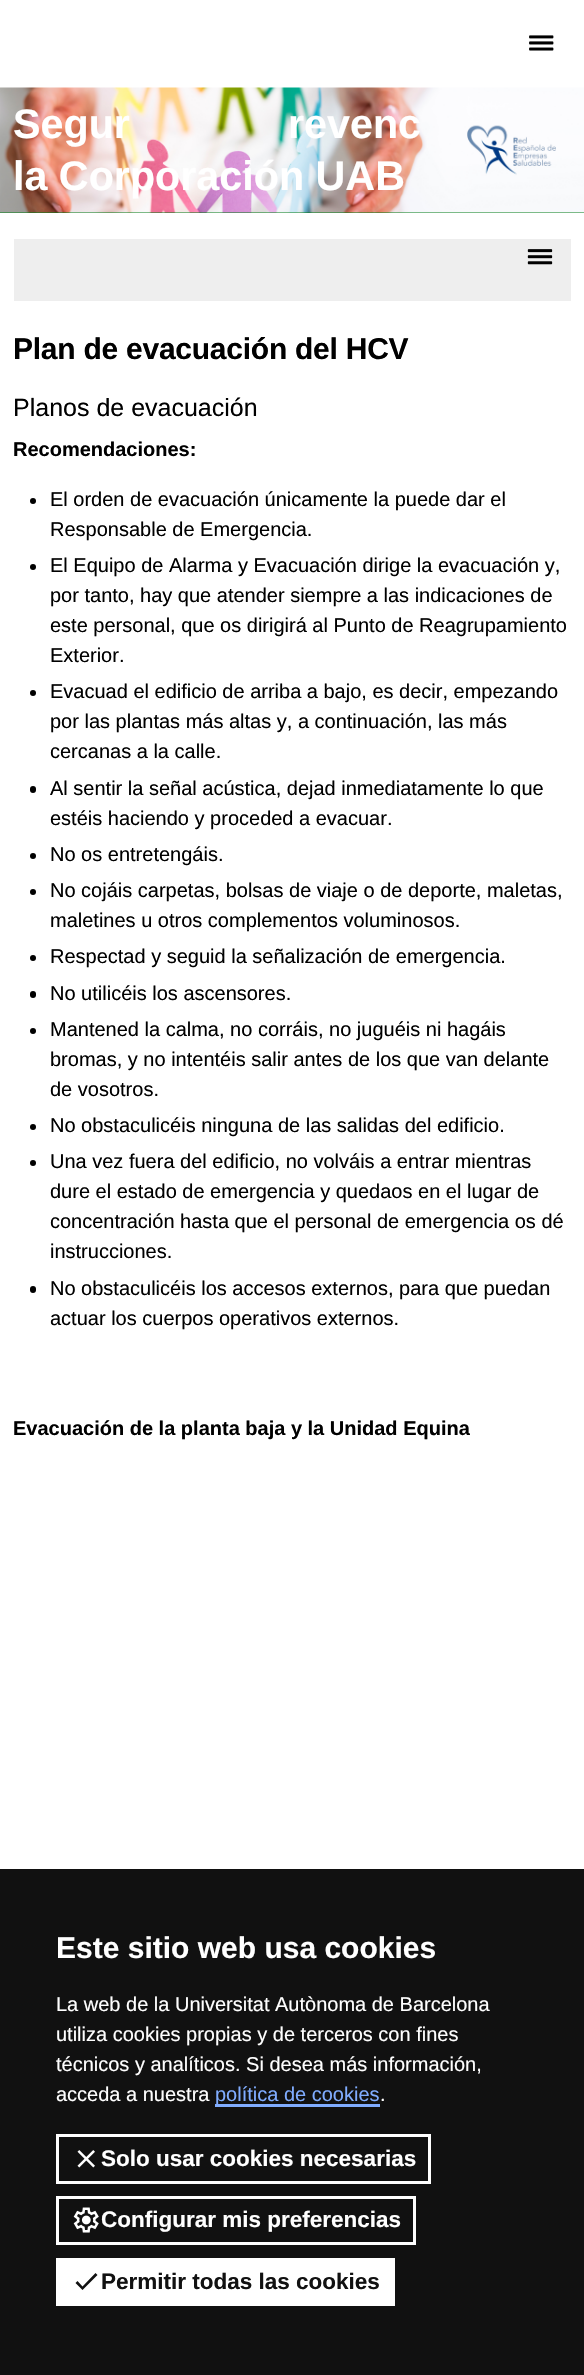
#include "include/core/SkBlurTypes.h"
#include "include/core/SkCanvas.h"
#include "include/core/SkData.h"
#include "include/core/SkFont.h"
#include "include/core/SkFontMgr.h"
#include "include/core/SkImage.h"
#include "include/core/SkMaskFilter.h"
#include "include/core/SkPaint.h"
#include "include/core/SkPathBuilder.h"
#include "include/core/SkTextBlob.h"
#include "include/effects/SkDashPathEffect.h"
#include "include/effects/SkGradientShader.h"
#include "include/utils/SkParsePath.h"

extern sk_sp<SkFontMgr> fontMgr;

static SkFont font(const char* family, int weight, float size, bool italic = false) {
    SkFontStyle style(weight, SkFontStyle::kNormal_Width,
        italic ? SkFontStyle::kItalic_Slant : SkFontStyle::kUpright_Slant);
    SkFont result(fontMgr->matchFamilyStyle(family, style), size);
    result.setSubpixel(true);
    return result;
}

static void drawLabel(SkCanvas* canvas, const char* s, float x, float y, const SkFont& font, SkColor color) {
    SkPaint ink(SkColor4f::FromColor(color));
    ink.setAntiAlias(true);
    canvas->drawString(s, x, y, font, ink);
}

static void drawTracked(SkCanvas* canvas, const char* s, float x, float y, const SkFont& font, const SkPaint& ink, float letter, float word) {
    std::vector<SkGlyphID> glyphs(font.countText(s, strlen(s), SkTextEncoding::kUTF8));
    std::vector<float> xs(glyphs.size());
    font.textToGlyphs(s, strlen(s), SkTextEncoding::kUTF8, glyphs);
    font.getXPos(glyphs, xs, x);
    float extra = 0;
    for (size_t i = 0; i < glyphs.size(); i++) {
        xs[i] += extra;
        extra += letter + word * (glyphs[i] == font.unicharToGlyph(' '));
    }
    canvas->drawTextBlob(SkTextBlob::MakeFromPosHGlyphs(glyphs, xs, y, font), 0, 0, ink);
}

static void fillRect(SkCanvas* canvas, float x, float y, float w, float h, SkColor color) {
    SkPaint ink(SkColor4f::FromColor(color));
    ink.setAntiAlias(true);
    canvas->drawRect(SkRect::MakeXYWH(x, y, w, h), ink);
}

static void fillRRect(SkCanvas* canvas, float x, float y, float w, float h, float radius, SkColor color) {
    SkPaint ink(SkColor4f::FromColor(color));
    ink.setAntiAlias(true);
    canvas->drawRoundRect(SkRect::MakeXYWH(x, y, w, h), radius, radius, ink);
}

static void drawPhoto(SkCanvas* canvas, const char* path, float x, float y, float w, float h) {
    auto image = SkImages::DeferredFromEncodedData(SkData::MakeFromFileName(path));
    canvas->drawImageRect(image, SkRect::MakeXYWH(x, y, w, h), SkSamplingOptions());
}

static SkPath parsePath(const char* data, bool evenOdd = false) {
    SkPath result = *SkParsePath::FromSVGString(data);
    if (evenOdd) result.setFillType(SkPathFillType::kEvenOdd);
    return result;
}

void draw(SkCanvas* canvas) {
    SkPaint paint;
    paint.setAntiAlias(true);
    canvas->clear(0xFFFFFFFF);
    drawPhoto(canvas, "assets/img1.png", 529, 35, 25, 16);
    fillRect(canvas, 0, 212, 584, 1, 0xFF007B14);
    drawPhoto(canvas, "assets/img2.png", 0, 87, 584, 126);
    SkFont font1 = font("Liberation Sans", 700, 41.25f);
    drawLabel(canvas, "Segur", 13, 138, font1, 0xFFFFFFFF);
    drawLabel(canvas, "revenc", 288, 138, font1, 0xFFFFFFFF);
    drawLabel(canvas, "la Corporación UAB", 13, 190, font1, 0xFFFFFFFF);
    fillRect(canvas, 14, 239, 557, 62, 0xFFEEEEEE);
    drawPhoto(canvas, "assets/img3.png", 527, 249, 26, 16);
    SkFont font2 = font("Liberation Sans", 700, 30);
    paint.setColor(0xFF000000);
    drawTracked(canvas, "Plan de evacuación del HCV", 13, 359, font2, paint, -0.25f, 0);
    SkFont font3 = font("Liberation Sans", 400, 25);
    drawLabel(canvas, "Planos de evacuación", 13, 416, font3, 0xFF000000);
    SkFont font4 = font("Liberation Sans", 700, 20);
    drawLabel(canvas, "Recomendaciones:", 13, 456, font4, 0xFF000000);
    canvas->drawCircle(33, 501, 3, paint);
    SkFont font5 = font("Liberation Sans", 400, 20);
    drawLabel(canvas, "El orden de evacuación únicamente la puede dar el", 50, 506, font5, 0xFF000000);
    drawLabel(canvas, "Responsable de Emergencia.", 50, 536, font5, 0xFF000000);
    canvas->drawCircle(33, 567, 3, paint);
    drawLabel(canvas, "El Equipo de Alarma y Evacuación dirige la evacuación y,", 50, 572, font5, 0xFF000000);
    drawLabel(canvas, "por tanto, hay que atender siempre a las indicaciones de", 50, 602, font5, 0xFF000000);
    drawLabel(canvas, "este personal, que os dirigirá al Punto de Reagrupamiento", 50, 632, font5, 0xFF000000);
    drawLabel(canvas, "Exterior.", 50, 662, font5, 0xFF000000);
    canvas->drawCircle(33, 693, 3, paint);
    drawLabel(canvas, "Evacuad el edificio de arriba a bajo, es decir, empezando", 50, 698, font5, 0xFF000000);
    drawLabel(canvas, "por las plantas más altas y, a continuación, las más", 50, 728, font5, 0xFF000000);
    drawLabel(canvas, "cercanas a la calle.", 50, 758, font5, 0xFF000000);
    fillRRect(canvas, 30, 786, 6, 7, 3, 0xFF000000);
    drawLabel(canvas, "Al sentir la señal acústica, dejad inmediatamente lo que", 50, 795, font5, 0xFF000000);
    drawLabel(canvas, "estéis haciendo y proceded a evacuar.", 50, 825, font5, 0xFF000000);
    canvas->drawCircle(33, 856, 3, paint);
    drawLabel(canvas, "No os entretengáis.", 50, 861, font5, 0xFF000000);
    canvas->drawCircle(33, 892, 3, paint);
    drawLabel(canvas, "No cojáis carpetas, bolsas de viaje o de deporte, maletas,", 50, 897, font5, 0xFF000000);
    drawLabel(canvas, "maletines u otros complementos voluminosos.", 50, 927, font5, 0xFF000000);
    canvas->drawCircle(33, 958, 3, paint);
    drawLabel(canvas, "Respectad y seguid la señalización de emergencia.", 50, 963, font5, 0xFF000000);
    fillRRect(canvas, 30, 991, 6, 7, 3, 0xFF000000);
    drawLabel(canvas, "No utilicéis los ascensores.", 50, 1000, font5, 0xFF000000);
    canvas->drawCircle(33, 1031, 3, paint);
    drawLabel(canvas, "Mantened la calma, no corráis, no juguéis ni hagáis", 50, 1036, font5, 0xFF000000);
    drawLabel(canvas, "bromas, y no intentéis salir antes de los que van delante", 50, 1066, font5, 0xFF000000);
    drawLabel(canvas, "de vosotros.", 50, 1096, font5, 0xFF000000);
    canvas->drawCircle(33, 1127, 3, paint);
    drawLabel(canvas, "No obstaculicéis ninguna de las salidas del edificio.", 50, 1132, font5, 0xFF000000);
    canvas->drawCircle(33, 1163, 3, paint);
    drawLabel(canvas, "Una vez fuera del edificio, no volváis a entrar mientras", 50, 1168, font5, 0xFF000000);
    drawLabel(canvas, "dure el estado de emergencia y quedaos en el lugar de", 50, 1198, font5, 0xFF000000);
    drawLabel(canvas, "concentración hasta que el personal de emergencia os dé", 50, 1228, font5, 0xFF000000);
    drawLabel(canvas, "instrucciones.", 50, 1258, font5, 0xFF000000);
    fillRRect(canvas, 30, 1286, 6, 7, 3, 0xFF000000);
    drawLabel(canvas, "No obstaculicéis los accesos externos, para que puedan", 50, 1295, font5, 0xFF000000);
    drawLabel(canvas, "actuar los cuerpos operativos externos.", 50, 1325, font5, 0xFF000000);
    drawLabel(canvas, "Evacuación de la planta baja y la Unidad Equina", 13, 1435, font4, 0xFF000000);
    fillRect(canvas, 0, 1869, 584, 506, 0xFF111111);
    drawLabel(canvas, "Este sitio web usa cookies", 56, 1958, font2, 0xFFFFFFFF);
    drawLabel(canvas, "La web de la Universitat Autònoma de Barcelona", 56, 2011, font5, 0xFFFFFFFF);
    drawLabel(canvas, "utiliza cookies propias y de terceros con fines", 56, 2041, font5, 0xFFFFFFFF);
    drawLabel(canvas, "técnicos y analíticos. Si desea más información,", 56, 2071, font5, 0xFFFFFFFF);
    drawLabel(canvas, "acceda a nuestra", 56, 2101, font5, 0xFFFFFFFF);
    fillRect(canvas, 215, 2104, 165, 3, 0xFF80ACFF);
    drawLabel(canvas, "política de cookies", 215, 2101, font5, 0xFF80ACFF);
    drawLabel(canvas, ".", 380, 2101, font5, 0xFFFFFFFF);
    paint.setStroke(true);
    paint.setStrokeWidth(3);
    paint.setColor(0xFFFFFFFF);
    canvas->drawRect(SkRect::MakeXYWH(57.5f, 2135.5f, 372, 47), paint);
    drawPhoto(canvas, "assets/img4.png", 77, 2150, 18, 18);
    SkFont font6 = font("Liberation Sans", 700, 22.5f);
    drawLabel(canvas, "Solo usar cookies necesarias", 101, 2166, font6, 0xFFFFFFFF);
    canvas->drawRect(SkRect::MakeXYWH(57.5f, 2197.5f, 357, 46), paint);
    drawPhoto(canvas, "assets/img5.png", 73, 2207, 26, 26);
    drawLabel(canvas, "Configurar mis preferencias", 101, 2227, font6, 0xFFFFFFFF);
    fillRect(canvas, 56, 2258, 339, 48, 0xFFFFFFFF);
    paint.setStroke(false);
    paint.setColor(0xFF111111);
    canvas->drawPath(parsePath("M82.5 2286.5L77.5 2281L75.5 2283L82.5 2290L97.5 2275L95.5 2273Z"), paint);
    drawLabel(canvas, "Permitir todas las cookies", 101, 2289, font6, 0xFF111111);
}
